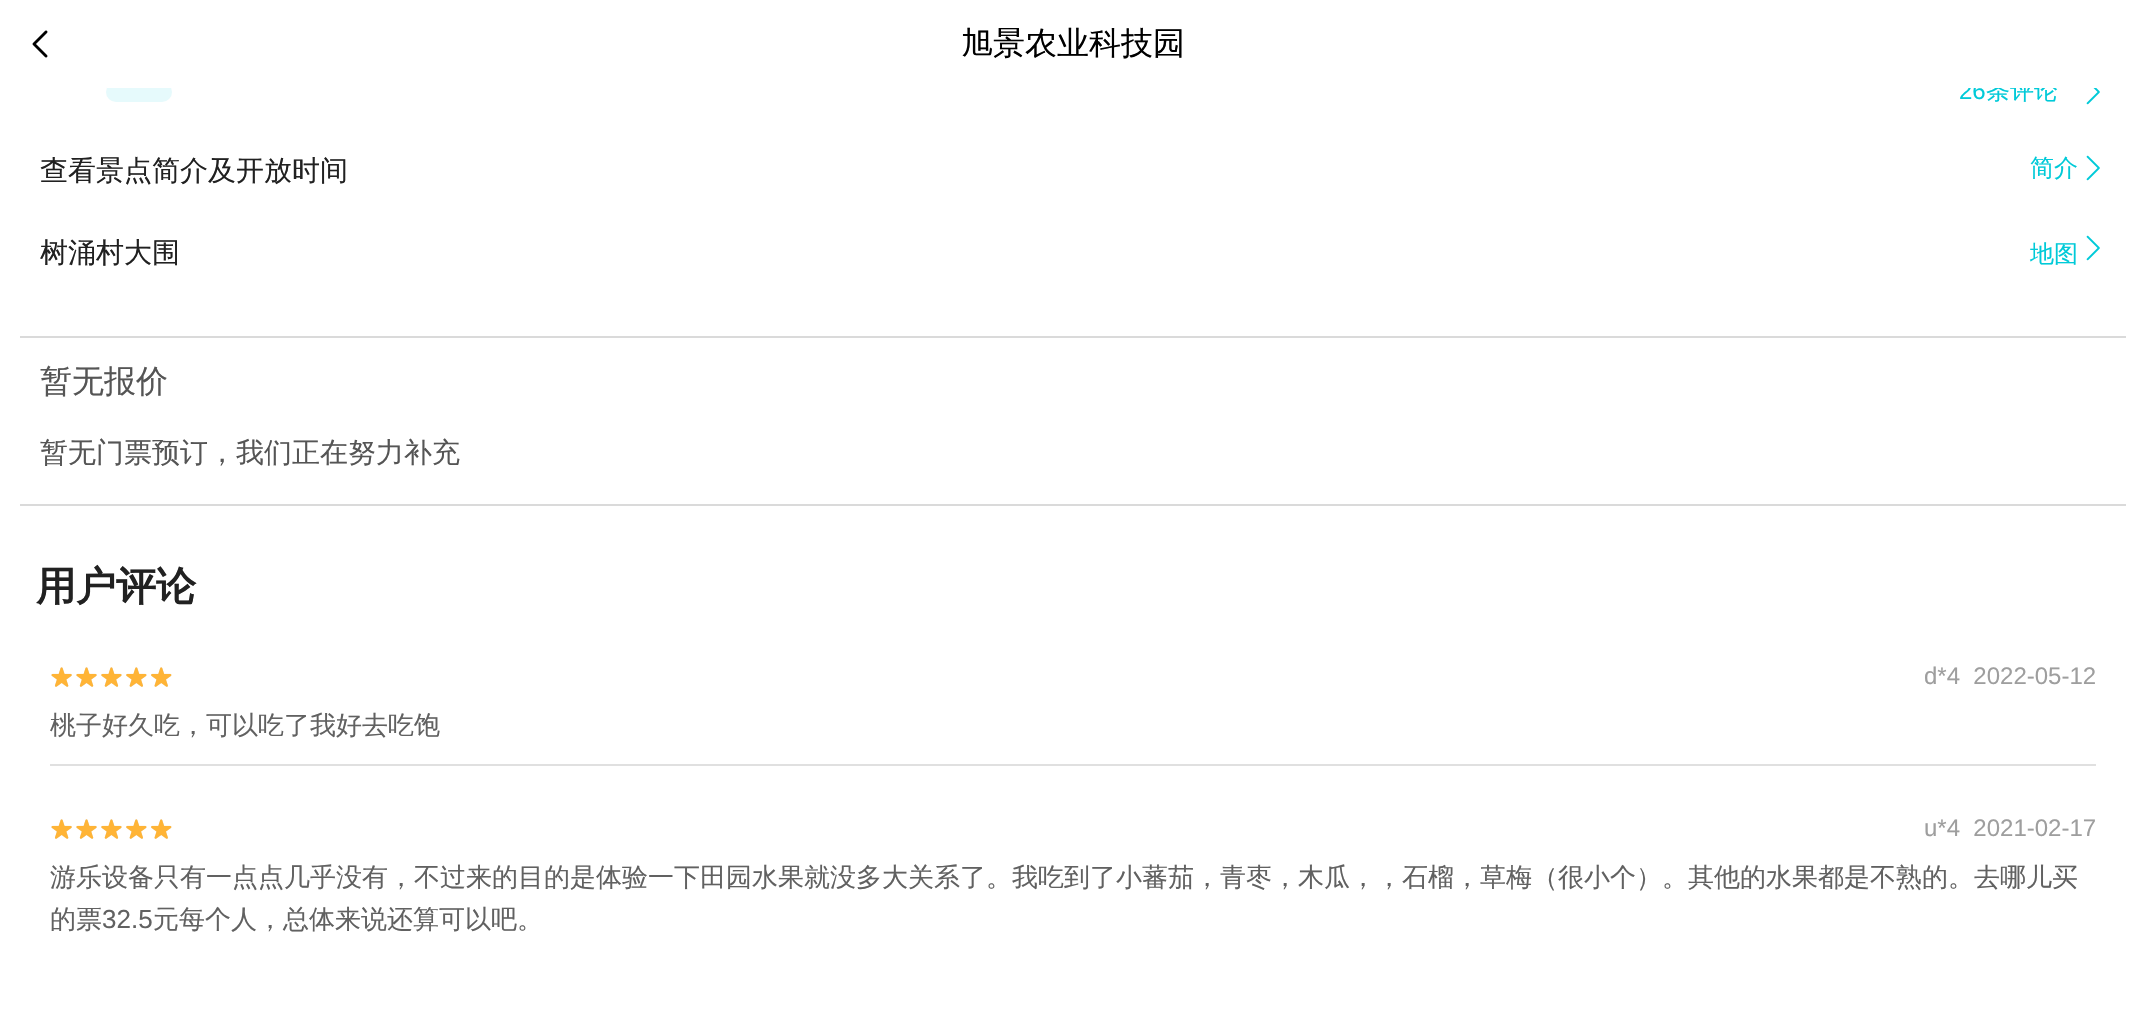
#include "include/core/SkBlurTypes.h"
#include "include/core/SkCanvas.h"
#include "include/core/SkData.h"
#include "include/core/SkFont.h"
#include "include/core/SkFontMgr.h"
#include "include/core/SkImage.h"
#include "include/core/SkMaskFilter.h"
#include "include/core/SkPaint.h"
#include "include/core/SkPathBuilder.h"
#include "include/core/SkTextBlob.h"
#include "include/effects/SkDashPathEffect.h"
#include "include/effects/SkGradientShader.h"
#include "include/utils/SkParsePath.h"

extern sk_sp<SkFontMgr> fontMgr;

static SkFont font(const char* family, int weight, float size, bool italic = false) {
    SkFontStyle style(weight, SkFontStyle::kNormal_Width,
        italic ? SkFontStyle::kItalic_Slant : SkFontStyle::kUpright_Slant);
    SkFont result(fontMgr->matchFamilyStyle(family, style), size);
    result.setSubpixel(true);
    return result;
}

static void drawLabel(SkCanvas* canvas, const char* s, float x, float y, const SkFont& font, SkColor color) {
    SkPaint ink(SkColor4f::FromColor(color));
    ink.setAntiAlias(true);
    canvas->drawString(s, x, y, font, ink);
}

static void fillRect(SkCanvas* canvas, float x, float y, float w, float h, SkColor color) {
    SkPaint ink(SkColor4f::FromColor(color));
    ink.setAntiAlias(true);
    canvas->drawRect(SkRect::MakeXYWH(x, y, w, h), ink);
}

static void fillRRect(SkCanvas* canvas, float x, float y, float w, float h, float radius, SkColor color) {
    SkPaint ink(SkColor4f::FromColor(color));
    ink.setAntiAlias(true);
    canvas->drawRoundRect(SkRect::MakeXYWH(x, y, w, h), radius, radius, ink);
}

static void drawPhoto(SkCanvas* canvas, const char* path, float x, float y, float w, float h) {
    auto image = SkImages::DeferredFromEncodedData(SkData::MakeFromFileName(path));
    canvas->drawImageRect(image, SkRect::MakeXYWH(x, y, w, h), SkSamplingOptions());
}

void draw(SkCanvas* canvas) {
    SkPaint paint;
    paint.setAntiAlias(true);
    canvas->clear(0xFFFFFFFF);
    fillRRect(canvas, 106, 82, 66, 20, 10, 0xFFE6FAFC);
    SkFont font1 = font("Liberation Sans", 400, 24);
    drawLabel(canvas, "26", 1959, 99, font1, 0xFF00CAD8);
    SkFont font2 = font("WenQuanYi Zen Hei", 500, 24);
    drawLabel(canvas, "条评论", 1986, 99, font2, 0xFF00CAD8);
    fillRect(canvas, 107, 79, 1949, 9, 0xFFFFFFFF);
    drawPhoto(canvas, "assets/img1.png", 32, 30, 16, 28);
    SkFont font3 = font("WenQuanYi Zen Hei", 500, 32);
    drawLabel(canvas, "旭景农业科技园", 961, 54, font3, 0xFF000000);
    drawPhoto(canvas, "assets/img2.png", 2086, 88, 14, 17);
    SkFont font4 = font("WenQuanYi Zen Hei", 500, 28);
    drawLabel(canvas, "查看景点简介及开放时间", 40, 180, font4, 0xFF212121);
    drawLabel(canvas, "简介", 2030, 176, font2, 0xFF00CAD8);
    drawPhoto(canvas, "assets/img3.png", 2086, 155, 14, 26);
    drawLabel(canvas, "树涌村大围", 40, 262, font4, 0xFF212121);
    drawLabel(canvas, "地图", 2030, 262, font2, 0xFF00CAD8);
    drawPhoto(canvas, "assets/img3.png", 2086, 235, 14, 26);
    fillRect(canvas, 20, 336, 2106, 2, 0xFFDADADA);
    drawLabel(canvas, "暂无报价", 40, 392, font3, 0xFF555555);
    drawLabel(canvas, "暂无门票预订，我们正在努力补充", 40, 462, font4, 0xFF555555);
    fillRect(canvas, 20, 504, 2106, 2, 0xFFDADADA);
    SkFont font5 = font("WenQuanYi Zen Hei", 700, 40);
    drawLabel(canvas, "用户评论", 36, 600, font5, 0xFF212121);
    drawPhoto(canvas, "assets/img4.png", 51, 667, 121, 20);
    drawPhoto(canvas, "assets/img5.png", 51, 667, 121, 20);
    drawLabel(canvas, "d*4  2022-05-12", 1924, 684, font1, 0xFF9E9E9E);
    SkFont font6 = font("WenQuanYi Zen Hei", 500, 26);
    drawLabel(canvas, "桃子好久吃，可以吃了我好去吃饱", 50, 734, font6, 0xFF616161);
    fillRect(canvas, 50, 764, 2046, 2, 0xFFE0E0E0);
    drawPhoto(canvas, "assets/img4.png", 51, 819, 121, 20);
    drawPhoto(canvas, "assets/img5.png", 51, 819, 121, 20);
    drawLabel(canvas, "u*4  2021-02-17", 1924, 836, font1, 0xFF9E9E9E);
    drawLabel(canvas, "游乐设备只有一点点几乎没有，不过来的目的是体验一下田园水果就没多大关系了。我吃到了小蕃茄，青枣，木瓜，，石榴，草梅（很小个）。其他的水果都是不熟的。去哪儿买", 50, 886, font6, 0xFF616161);
    drawLabel(canvas, "的票", 50, 928, font6, 0xFF616161);
    SkFont font7 = font("Liberation Sans", 400, 26);
    drawLabel(canvas, "32.5", 102, 928, font7, 0xFF616161);
    drawLabel(canvas, "元每个人，总体来说还算可以吧。", 153, 928, font6, 0xFF616161);
}
